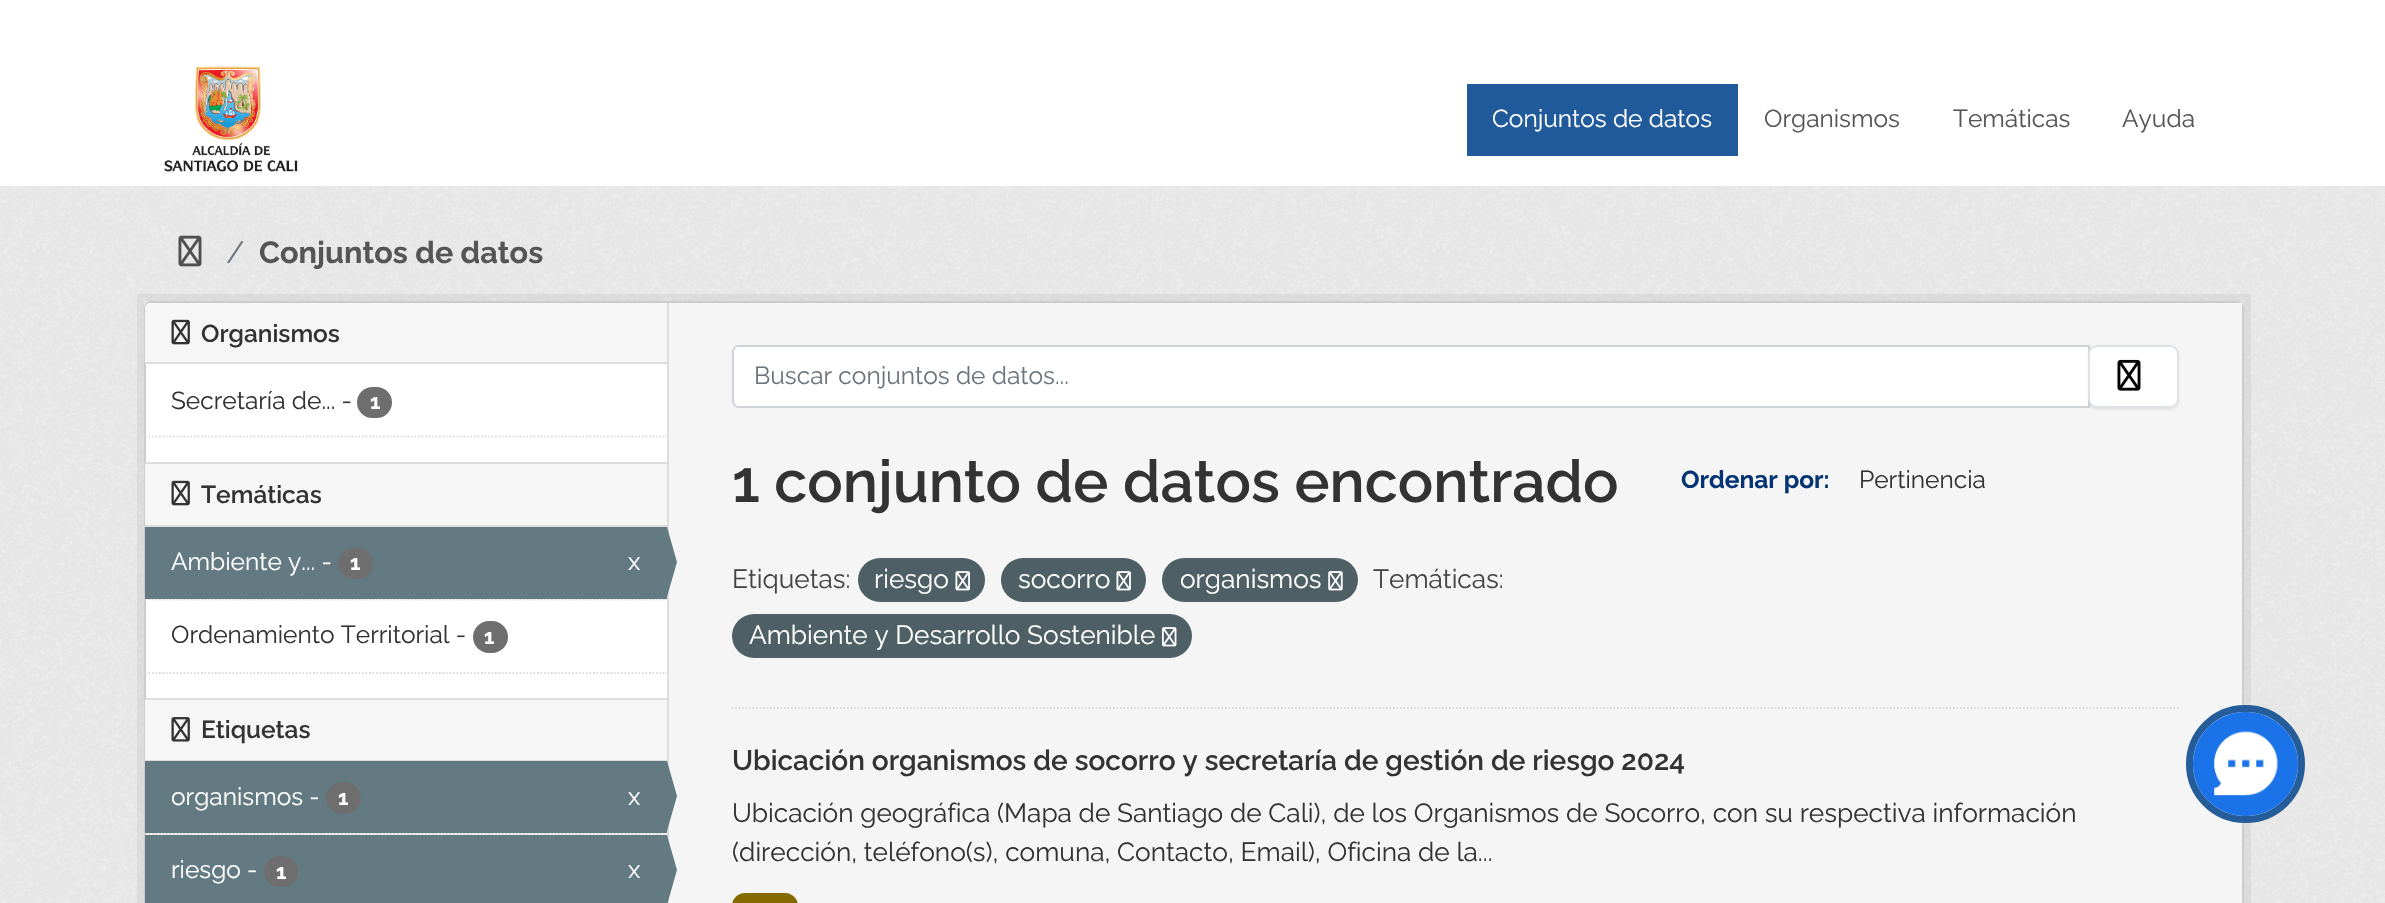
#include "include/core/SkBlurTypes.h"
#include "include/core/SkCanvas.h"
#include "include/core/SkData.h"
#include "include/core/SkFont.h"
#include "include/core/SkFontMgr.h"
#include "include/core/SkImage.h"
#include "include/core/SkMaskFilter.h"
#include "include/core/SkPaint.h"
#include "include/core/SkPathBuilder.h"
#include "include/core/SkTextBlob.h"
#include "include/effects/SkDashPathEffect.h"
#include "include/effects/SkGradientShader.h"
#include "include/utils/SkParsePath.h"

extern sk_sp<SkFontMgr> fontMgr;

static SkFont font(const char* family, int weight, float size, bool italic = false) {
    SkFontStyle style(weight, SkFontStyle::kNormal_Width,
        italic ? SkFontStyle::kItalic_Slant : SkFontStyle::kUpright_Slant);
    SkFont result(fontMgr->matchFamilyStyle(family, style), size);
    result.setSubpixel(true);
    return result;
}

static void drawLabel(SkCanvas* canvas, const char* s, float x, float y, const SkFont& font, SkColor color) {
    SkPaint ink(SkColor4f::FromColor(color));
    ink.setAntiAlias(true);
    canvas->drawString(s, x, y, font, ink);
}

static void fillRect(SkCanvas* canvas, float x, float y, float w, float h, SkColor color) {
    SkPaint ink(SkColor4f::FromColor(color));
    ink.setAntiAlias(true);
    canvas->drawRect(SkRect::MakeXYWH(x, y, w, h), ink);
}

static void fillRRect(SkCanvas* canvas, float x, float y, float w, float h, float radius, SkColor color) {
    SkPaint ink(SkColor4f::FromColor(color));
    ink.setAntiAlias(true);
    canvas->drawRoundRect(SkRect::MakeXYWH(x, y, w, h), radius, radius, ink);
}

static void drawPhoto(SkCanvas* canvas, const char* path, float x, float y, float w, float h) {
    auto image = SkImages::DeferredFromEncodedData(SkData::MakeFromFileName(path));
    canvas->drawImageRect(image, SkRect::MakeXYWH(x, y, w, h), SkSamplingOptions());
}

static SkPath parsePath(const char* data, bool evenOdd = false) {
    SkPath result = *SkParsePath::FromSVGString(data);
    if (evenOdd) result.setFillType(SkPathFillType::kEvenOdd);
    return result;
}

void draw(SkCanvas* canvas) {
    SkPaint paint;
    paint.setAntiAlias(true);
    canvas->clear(0xFFFFFFFF);
    drawPhoto(canvas, "assets/img1.png", 164, 66, 134, 106);
    fillRect(canvas, 1467, 84, 271, 72, 0xFF215A9A);
    SkFont font1 = font("Raleway", 400, 24.5f);
    drawLabel(canvas, "Conjuntos de datos", 1492, 127, font1, 0xFFFFFFFF);
    drawLabel(canvas, "Organismos", 1764, 127, font1, 0xFF555555);
    drawLabel(canvas, "Temáticas", 1953, 127, font1, 0xFF555555);
    drawLabel(canvas, "Ayuda", 2122, 127, font1, 0xFF555555);
    fillRect(canvas, 0, 186, 2385, 717, 0xFFEEEEEE);
    drawPhoto(canvas, "assets/img2.png", 0, 186, 2385, 717);
    drawPhoto(canvas, "assets/img3.png", 178, 235, 24, 32);
    SkFont font2 = font("Raleway", 400, 30.6f);
    drawLabel(canvas, "/", 226, 263, font2, 0xFF6C757D);
    SkFont font3 = font("Raleway", 700, 30.6f);
    drawLabel(canvas, "Conjuntos de datos", 259, 263, font3, 0xFF555555);
    paint.setStroke(true);
    paint.setStrokeWidth(7);
    paint.setColor(0x0D000000);
    canvas->drawRect(SkRect::MakeXYWH(140.5f, 297.5f, 2107, 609), paint);
    paint.setStroke(false);
    paint.setColor(0xFFFFFFFF);
    canvas->drawRoundRect(SkRect::MakeXYWH(145, 302, 2098, 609), 6, 6, paint);
    paint.setStroke(true);
    paint.setStrokeWidth(2);
    paint.setColor(0xFFCCCCCC);
    canvas->drawRoundRect(SkRect::MakeXYWH(145, 302, 2098, 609), 6, 6, paint);
    paint.setStroke(false);
    paint.setColor(0xFFF6F6F6);
    canvas->drawPath(parsePath("M150 303H667V364H145V308C145 305 147 303 150 303Z"), paint);
    fillRect(canvas, 145, 362, 522, 2, 0xFFDDDDDD);
    drawPhoto(canvas, "assets/img4.png", 171, 319, 19, 26);
    SkFont font4 = font("Raleway", 600, 24.5f);
    drawLabel(canvas, "Organismos", 201, 342, font4, 0xFF333333);
    drawLabel(canvas, "Secretaría de... -", 171, 409, font1, 0xFF333333);
    fillRRect(canvas, 357, 387, 35, 31, 15.5f, 0xFF6E6E6E);
    SkFont font5 = font("Raleway", 700, 21);
    drawLabel(canvas, "1", 370, 409, font5, 0xFFFFFFFF);
    paint.setStroke(true);
    paint.setStrokeWidth(1.8f);
    paint.setColor(0xFFDDDDDD);
    paint.setPathEffect(SkDashPathEffect::Make({{1.75f, 1.75f}}, 0));
    canvas->drawPath(parsePath("M145 436.5H667"), paint);
    paint.setPathEffect(nullptr);
    fillRect(canvas, 145, 464, 522, 61, 0xFFF6F6F6);
    fillRect(canvas, 145, 462, 522, 2, 0xFFDDDDDD);
    fillRect(canvas, 145, 525, 522, 2, 0xFFDDDDDD);
    drawPhoto(canvas, "assets/img4.png", 171, 480, 19, 26);
    drawLabel(canvas, "Temáticas", 201, 503, font4, 0xFF333333);
    fillRect(canvas, 146, 599, 521, 1, 0xFFF6F6F6);
    paint.setPathEffect(SkDashPathEffect::Make({{1.75f, 1.75f}}, 0));
    canvas->drawPath(parsePath("M145 599.5H667"), paint);
    paint.setPathEffect(nullptr);
    fillRect(canvas, 145, 527, 522, 72, 0xFF647A82);
    drawLabel(canvas, "Ambiente y... -", 171, 570, font1, 0xFFFFFFFF);
    fillRRect(canvas, 338, 548, 35, 31, 15.5f, 0xFF6E6E6E);
    drawLabel(canvas, "1", 350, 570, font5, 0xFFFFFFFF);
    drawLabel(canvas, "x", 628, 570, font1, 0xFFFFFFFF);
    fillRect(canvas, 667, 303, 2, 600, 0xFFDDDDDD);
    fillRect(canvas, 669, 303, 1573, 600, 0xFFF5F5F5);
    paint.setStroke(false);
    paint.setColor(0xFF647A82);
    canvas->drawPath(parsePath("M667 597V527L677 562Z"), paint);
    drawLabel(canvas, "Ordenamiento Territorial -", 171, 643, font1, 0xFF333333);
    fillRRect(canvas, 473, 621, 35, 32, 16, 0xFF6E6E6E);
    drawLabel(canvas, "1", 484, 644, font5, 0xFFFFFFFF);
    paint.setStroke(true);
    paint.setColor(0xFFDDDDDD);
    paint.setPathEffect(SkDashPathEffect::Make({{1.75f, 1.75f}}, 0));
    canvas->drawPath(parsePath("M145 673H667"), paint);
    paint.setPathEffect(nullptr);
    fillRect(canvas, 145, 700, 522, 60, 0xFFF6F6F6);
    fillRect(canvas, 145, 698, 522, 2, 0xFFDDDDDD);
    fillRect(canvas, 145, 760, 522, 1, 0xFFDDDDDD);
    drawPhoto(canvas, "assets/img5.png", 171, 717, 19, 25);
    drawLabel(canvas, "Etiquetas", 201, 738, font4, 0xFF333333);
    fillRect(canvas, 145, 833, 522, 2, 0xFFF6F6F6);
    paint.setPathEffect(SkDashPathEffect::Make({{1.75f, 1.75f}}, 0));
    canvas->drawPath(parsePath("M145 834H667"), paint);
    paint.setPathEffect(nullptr);
    fillRect(canvas, 145, 761, 522, 72, 0xFF647A82);
    drawLabel(canvas, "organismos -", 171, 805, font1, 0xFFFFFFFF);
    fillRRect(canvas, 326, 782, 35, 32, 16, 0xFF6E6E6E);
    drawLabel(canvas, "1", 338, 805, font5, 0xFFFFFFFF);
    drawLabel(canvas, "x", 628, 805, font1, 0xFFFFFFFF);
    paint.setStroke(false);
    paint.setColor(0xFF647A82);
    canvas->drawPath(parsePath("M667 831V761L677 796Z"), paint);
    fillRect(canvas, 145, 835, 522, 68, 0xFF647A82);
    drawLabel(canvas, "riesgo -", 171, 878, font1, 0xFFFFFFFF);
    fillRRect(canvas, 264, 856, 34, 31, 15.5f, 0xFF6E6E6E);
    drawLabel(canvas, "1", 276, 879, font5, 0xFFFFFFFF);
    drawLabel(canvas, "x", 628, 878, font1, 0xFFFFFFFF);
    canvas->drawPath(parsePath("M667 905V835L677 870Z"), paint);
    paint.setStroke(true);
    paint.setColor(0xFFDDDDDD);
    paint.setPathEffect(SkDashPathEffect::Make({{1.75f, 1.75f}}, 0));
    canvas->drawPath(parsePath("M731.5 708H2179"), paint);
    paint.setPathEffect(nullptr);
    paint.setStroke(false);
    paint.setColor(0xFFFFFFFF);
    canvas->drawPath(parsePath("M739 346H2089V407H739C735.5 407 733 404.5 733 401V352C733 348.5 735.5 346 739 346Z"), paint);
    paint.setStroke(true);
    paint.setStrokeWidth(2);
    paint.setColor(0xFFCED4DA);
    canvas->drawPath(parsePath("M739 346H2089V407H739C735.5 407 733 404.5 733 401V352C733 348.5 735.5 346 739 346Z"), paint);
    drawLabel(canvas, "Buscar conjuntos de datos...", 754, 384, font1, 0xFF6C757D);
    paint.setStroke(false);
    paint.setColor(0x12000000);
    paint.setMaskFilter(SkMaskFilter::MakeBlur(kNormal_SkBlurStyle, 1));
    canvas->drawRoundRect(SkRect::MakeXYWH(2088, 347, 91, 63), 9, 9, paint);
    paint.setMaskFilter(nullptr);
    paint.setColor(0xFFFFFFFF);
    canvas->drawRoundRect(SkRect::MakeXYWH(2089, 346, 89, 61), 8, 8, paint);
    paint.setStroke(true);
    paint.setColor(0xFFDEE2E6);
    canvas->drawRoundRect(SkRect::MakeXYWH(2089, 346, 89, 61), 8, 8, paint);
    drawPhoto(canvas, "assets/img6.png", 2117, 359, 24, 32);
    SkFont font6 = font("Raleway", 600, 59);
    drawLabel(canvas, "1 conjunto de datos encontrado", 732, 502, font6, 0xFF333333);
    SkFont font7 = font("Raleway", 700, 24.5f);
    drawLabel(canvas, "Ordenar por:", 1681, 488, font7, 0xFF043474);
    drawLabel(canvas, "Pertinencia", 1859, 488, font1, 0xFF333333);
    SkFont font8 = font("Raleway", 400, 26.25f);
    drawLabel(canvas, "Etiquetas:", 732, 588, font8, 0xFF444444);
    fillRRect(canvas, 858, 558, 127, 44, 22, 0xFF4E5F65);
    drawLabel(canvas, "riesgo", 874, 588, font8, 0xFFFFFFFF);
    drawPhoto(canvas, "assets/img7.png", 955, 571, 15, 20);
    fillRRect(canvas, 1001, 558, 145, 44, 22, 0xFF4E5F65);
    drawLabel(canvas, "socorro", 1018, 588, font8, 0xFFFFFFFF);
    drawPhoto(canvas, "assets/img7.png", 1116, 571, 15, 20);
    fillRRect(canvas, 1162, 558, 196, 44, 22, 0xFF4E5F65);
    drawLabel(canvas, "organismos", 1180, 588, font8, 0xFFFFFFFF);
    drawPhoto(canvas, "assets/img8.png", 1328, 571, 15, 20);
    drawLabel(canvas, "Temáticas:", 1373, 588, font8, 0xFF444444);
    fillRRect(canvas, 732, 614, 460, 44, 22, 0xFF4E5F65);
    drawLabel(canvas, "Ambiente y Desarrollo Sostenible", 749, 644, font8, 0xFFFFFFFF);
    drawPhoto(canvas, "assets/img9.png", 1162, 627, 15, 20);
    SkFont font9 = font("Raleway", 600, 28);
    drawLabel(canvas, "Ubicación organismos de socorro y secretaría de gestión de riesgo 2024", 732, 770, font9, 0xFF333333);
    drawLabel(canvas, "Ubicación geográfica (Mapa de Santiago de Cali), de los Organismos de Socorro, con su respectiva información", 732, 822, font8, 0xFF333333);
    drawLabel(canvas, "(dirección, teléfono(s), comuna, Contacto, Email), Oficina de la...", 732, 861, font8, 0xFF333333);
    fillRRect(canvas, 732, 893, 66, 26, 15.5f, 0xFF856A00);
    paint.setStrokeWidth(7);
    paint.setColor(0xFF255C9A);
    canvas->drawRoundRect(SkRect::MakeXYWH(2189.5f, 708.5f, 112, 111), 55.5f, 55.5f, paint);
    fillRRect(canvas, 2193, 712, 105, 104, 52, 0xFF1A73E8);
    drawPhoto(canvas, "assets/img10.png", 2214, 731, 64, 65);
}
